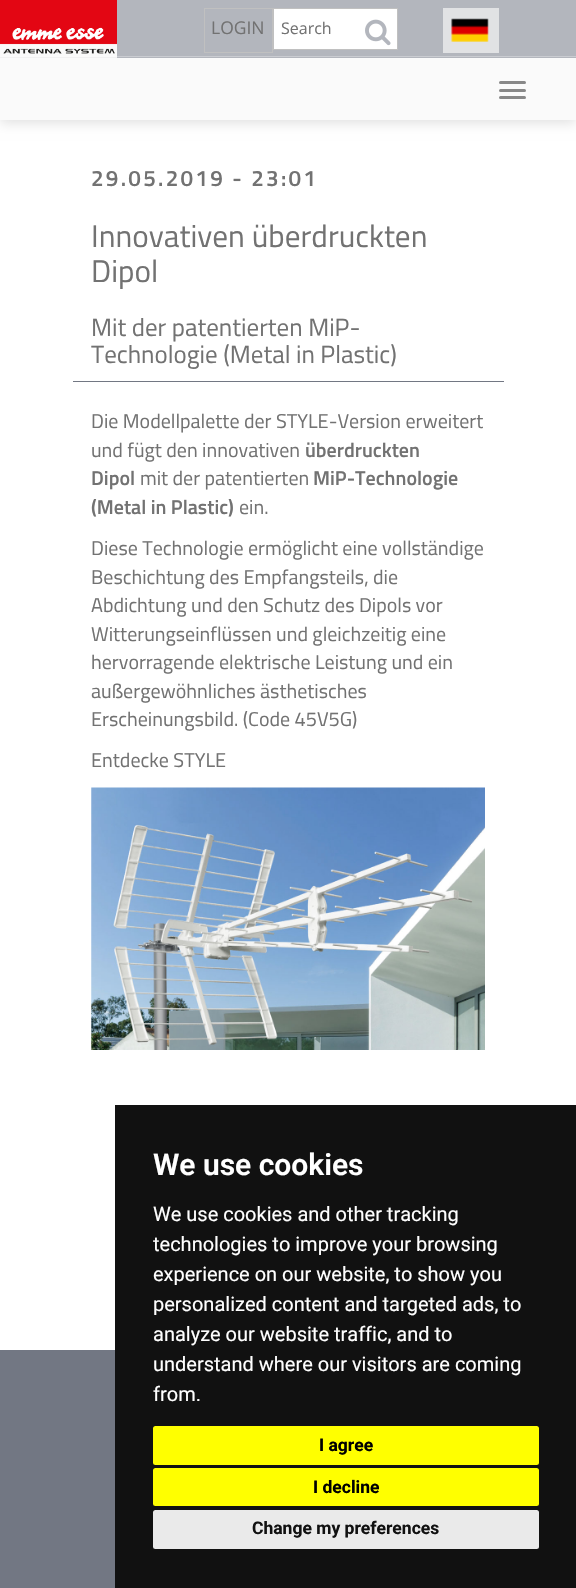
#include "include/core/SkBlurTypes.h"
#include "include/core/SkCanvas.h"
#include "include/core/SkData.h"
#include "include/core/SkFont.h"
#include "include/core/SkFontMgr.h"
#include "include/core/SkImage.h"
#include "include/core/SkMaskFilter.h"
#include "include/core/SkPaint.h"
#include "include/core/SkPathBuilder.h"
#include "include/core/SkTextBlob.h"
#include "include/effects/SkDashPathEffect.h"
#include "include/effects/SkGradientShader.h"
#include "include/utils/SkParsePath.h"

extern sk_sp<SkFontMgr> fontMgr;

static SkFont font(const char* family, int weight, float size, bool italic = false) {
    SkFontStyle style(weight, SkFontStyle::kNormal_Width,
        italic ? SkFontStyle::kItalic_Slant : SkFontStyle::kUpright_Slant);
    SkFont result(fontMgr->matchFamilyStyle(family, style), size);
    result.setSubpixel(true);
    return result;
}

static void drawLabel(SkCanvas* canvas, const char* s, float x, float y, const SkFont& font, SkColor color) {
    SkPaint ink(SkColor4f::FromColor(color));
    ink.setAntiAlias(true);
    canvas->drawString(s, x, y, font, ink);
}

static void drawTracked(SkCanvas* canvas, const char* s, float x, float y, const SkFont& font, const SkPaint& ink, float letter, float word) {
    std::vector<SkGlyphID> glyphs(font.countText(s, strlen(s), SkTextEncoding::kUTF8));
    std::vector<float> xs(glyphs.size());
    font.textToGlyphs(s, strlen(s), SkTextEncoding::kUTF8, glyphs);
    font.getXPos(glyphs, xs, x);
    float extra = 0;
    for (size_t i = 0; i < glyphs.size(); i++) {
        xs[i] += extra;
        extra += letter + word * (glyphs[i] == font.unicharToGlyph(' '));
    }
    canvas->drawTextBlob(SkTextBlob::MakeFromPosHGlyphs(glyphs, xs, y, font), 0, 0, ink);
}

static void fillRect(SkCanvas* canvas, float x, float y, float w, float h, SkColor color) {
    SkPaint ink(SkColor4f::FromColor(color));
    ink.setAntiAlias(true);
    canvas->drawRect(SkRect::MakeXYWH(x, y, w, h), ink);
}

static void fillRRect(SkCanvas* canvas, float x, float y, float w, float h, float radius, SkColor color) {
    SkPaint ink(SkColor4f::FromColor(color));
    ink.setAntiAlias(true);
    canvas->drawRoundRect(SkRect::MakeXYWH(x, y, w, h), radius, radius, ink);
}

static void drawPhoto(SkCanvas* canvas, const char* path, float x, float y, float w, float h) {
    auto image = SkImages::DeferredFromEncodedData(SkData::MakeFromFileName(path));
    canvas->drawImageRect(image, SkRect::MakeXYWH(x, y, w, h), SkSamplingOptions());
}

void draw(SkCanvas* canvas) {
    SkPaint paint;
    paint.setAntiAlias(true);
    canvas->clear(0xFFFFFFFF);
    paint.setColor(0x1F000000);
    paint.setMaskFilter(SkMaskFilter::MakeBlur(kNormal_SkBlurStyle, 6));
    canvas->drawRect(SkRect::MakeXYWH(0, 3, 576, 120), paint);
    paint.setMaskFilter(nullptr);
    fillRect(canvas, 0, 58, 576, 62, 0xFFFAFAFA);
    fillRect(canvas, 0, 0, 576, 58, 0xFFB3B6BD);
    drawPhoto(canvas, "assets/img1.png", 0, 0, 117, 58);
    fillRRect(canvas, 499, 81, 27, 3, 1.5f, 0xFF888888);
    fillRRect(canvas, 499, 89, 27, 3, 1.5f, 0xFF888888);
    fillRRect(canvas, 499, 96, 27, 3, 1.5f, 0xFF888888);
    fillRect(canvas, 117, 56, 459, 1, 0xFFCACCD1);
    paint.setStroke(true);
    paint.setStrokeWidth(1);
    paint.setColor(0xFFC0C0C0);
    canvas->drawRect(SkRect::MakeXYWH(204.5f, 8.5f, 68, 44), paint);
    SkFont font1 = font("Open Sans", 400, 17.5f);
    drawLabel(canvas, "LOGIN", 211, 34, font1, 0xFF727272);
    paint.setStroke(false);
    paint.setColor(0xFFFFFFFF);
    canvas->drawRect(SkRect::MakeXYWH(273.5f, 8.5f, 124, 41), paint);
    paint.setStroke(true);
    paint.setColor(0xFFC0C0C0);
    canvas->drawRect(SkRect::MakeXYWH(273.5f, 8.5f, 124, 41), paint);
    SkFont font2 = font("Open Sans", 400, 16);
    drawLabel(canvas, "Search", 281, 34, font2, 0xFF727272);
    drawPhoto(canvas, "assets/img2.png", 365, 19, 26, 27);
    fillRect(canvas, 443, 8, 56, 45, 0xFFE1E2E4);
    drawPhoto(canvas, "assets/img3.png", 451, 18, 38, 24);
    SkFont font3 = font("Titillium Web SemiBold", 600, 22.5f);
    paint.setStroke(false);
    paint.setColor(0xFF727272);
    drawTracked(canvas, "29.05.2019 - 23:01", 91, 186, font3, paint, 2.25f, 0);
    SkFont font4 = font("Titillium Web", 400, 31.25f);
    drawLabel(canvas, "Innovativen überdruckten", 91, 247, font4, 0xFF727272);
    drawLabel(canvas, "Dipol", 91, 282, font4, 0xFF727272);
    SkFont font5 = font("Titillium Web", 400, 25);
    drawLabel(canvas, "Mit der patentierten MiP-", 91, 336, font5, 0xFF727272);
    drawLabel(canvas, "Technologie (Metal in Plastic)", 91, 363, font5, 0xFF727272);
    fillRect(canvas, 73, 381, 431, 1, 0xFF727783);
    SkFont font6 = font("Titillium Web", 400, 20);
    drawLabel(canvas, "Die Modellpalette der STYLE-Version erweitert", 91, 428, font6, 0xFF727272);
    drawLabel(canvas, "und fügt den innovativen", 91, 457, font6, 0xFF727272);
    SkFont font7 = font("Titillium Web SemiBold", 600, 20);
    drawLabel(canvas, "überdruckten", 305, 457, font7, 0xFF727272);
    drawLabel(canvas, "Dipol", 91, 485, font7, 0xFF727272);
    drawLabel(canvas, "mit der patentierten", 140, 485, font6, 0xFF727272);
    drawLabel(canvas, "MiP-Technologie", 313, 485, font7, 0xFF727272);
    drawLabel(canvas, "(Metal in Plastic)", 91, 514, font7, 0xFF727272);
    drawLabel(canvas, "ein.", 239, 514, font6, 0xFF727272);
    drawLabel(canvas, "Diese Technologie ermöglicht eine vollständige", 91, 555, font6, 0xFF727272);
    drawLabel(canvas, "Beschichtung des Empfangsteils, die", 91, 584, font6, 0xFF727272);
    drawLabel(canvas, "Abdichtung und den Schutz des Dipols vor", 91, 612, font6, 0xFF727272);
    drawLabel(canvas, "Witterungseinflüssen und gleichzeitig eine", 91, 641, font6, 0xFF727272);
    drawLabel(canvas, "hervorragende elektrische Leistung und ein", 91, 669, font6, 0xFF727272);
    drawLabel(canvas, "außergewöhnliches ästhetisches", 91, 698, font6, 0xFF727272);
    drawLabel(canvas, "Erscheinungsbild. (Code 45V5G)", 91, 726, font6, 0xFF727272);
    drawLabel(canvas, "Entdecke STYLE", 91, 767, font6, 0xFF727272);
    drawPhoto(canvas, "assets/img4.png", 91, 787, 394, 263);
    fillRect(canvas, 0, 1350, 115, 238, 0xFF727783);
    fillRect(canvas, 115, 1105, 461, 483, 0xFF111111);
    SkFont font8 = font("Roboto", 600, 30);
    drawLabel(canvas, "We use cookies", 153, 1175, font8, 0xFFFFFFFF);
    SkFont font9 = font("Roboto", 400, 20);
    drawLabel(canvas, "We use cookies and other tracking", 153, 1221, font9, 0xFFFFFFFF);
    drawLabel(canvas, "technologies to improve your browsing", 153, 1251, font9, 0xFFFFFFFF);
    drawLabel(canvas, "experience on our website, to show you", 153, 1281, font9, 0xFFFFFFFF);
    drawLabel(canvas, "personalized content and targeted ads, to", 153, 1311, font9, 0xFFFFFFFF);
    drawLabel(canvas, "analyze our website traffic, and to", 153, 1341, font9, 0xFFFFFFFF);
    drawLabel(canvas, "understand where our visitors are coming", 153, 1371, font9, 0xFFFFFFFF);
    drawLabel(canvas, "from.", 153, 1401, font9, 0xFFFFFFFF);
    fillRRect(canvas, 153, 1426, 386, 39, 2.5f, 0xFFFFFF00);
    SkFont font10 = font("Roboto", 700, 17.5f);
    drawLabel(canvas, "I agree", 319, 1451, font10, 0xFF000000);
    fillRRect(canvas, 153, 1468, 386, 38, 2.5f, 0xFFFFFF00);
    drawLabel(canvas, "I decline", 313, 1493, font10, 0xFF000000);
    fillRRect(canvas, 153, 1510, 386, 39, 2.5f, 0xFFEAEAEA);
    drawLabel(canvas, "Change my preferences", 252, 1534, font10, 0xFF111111);
}
